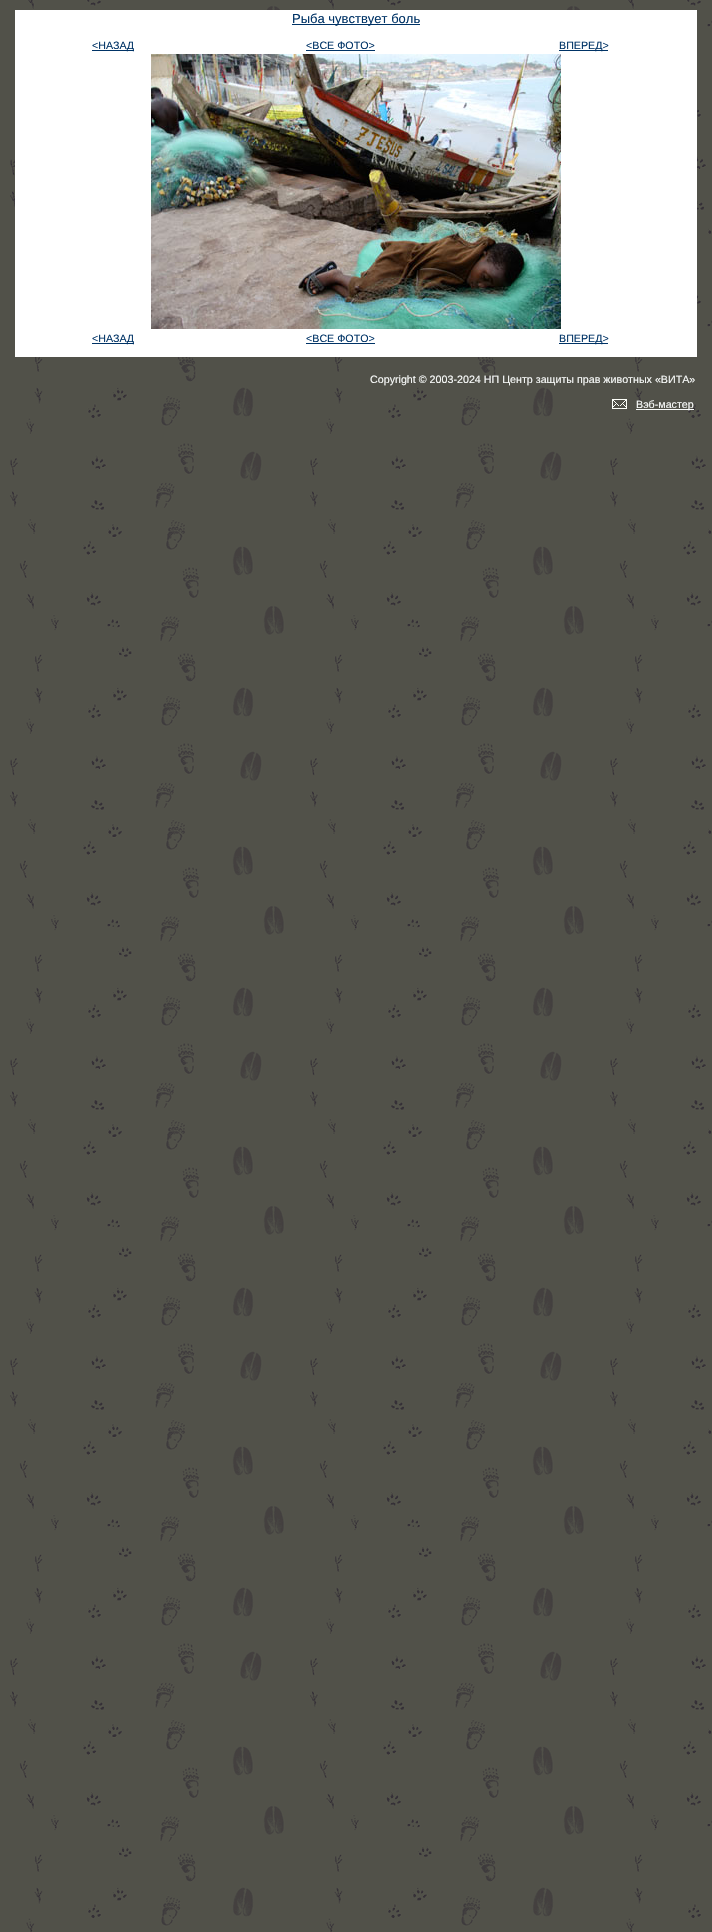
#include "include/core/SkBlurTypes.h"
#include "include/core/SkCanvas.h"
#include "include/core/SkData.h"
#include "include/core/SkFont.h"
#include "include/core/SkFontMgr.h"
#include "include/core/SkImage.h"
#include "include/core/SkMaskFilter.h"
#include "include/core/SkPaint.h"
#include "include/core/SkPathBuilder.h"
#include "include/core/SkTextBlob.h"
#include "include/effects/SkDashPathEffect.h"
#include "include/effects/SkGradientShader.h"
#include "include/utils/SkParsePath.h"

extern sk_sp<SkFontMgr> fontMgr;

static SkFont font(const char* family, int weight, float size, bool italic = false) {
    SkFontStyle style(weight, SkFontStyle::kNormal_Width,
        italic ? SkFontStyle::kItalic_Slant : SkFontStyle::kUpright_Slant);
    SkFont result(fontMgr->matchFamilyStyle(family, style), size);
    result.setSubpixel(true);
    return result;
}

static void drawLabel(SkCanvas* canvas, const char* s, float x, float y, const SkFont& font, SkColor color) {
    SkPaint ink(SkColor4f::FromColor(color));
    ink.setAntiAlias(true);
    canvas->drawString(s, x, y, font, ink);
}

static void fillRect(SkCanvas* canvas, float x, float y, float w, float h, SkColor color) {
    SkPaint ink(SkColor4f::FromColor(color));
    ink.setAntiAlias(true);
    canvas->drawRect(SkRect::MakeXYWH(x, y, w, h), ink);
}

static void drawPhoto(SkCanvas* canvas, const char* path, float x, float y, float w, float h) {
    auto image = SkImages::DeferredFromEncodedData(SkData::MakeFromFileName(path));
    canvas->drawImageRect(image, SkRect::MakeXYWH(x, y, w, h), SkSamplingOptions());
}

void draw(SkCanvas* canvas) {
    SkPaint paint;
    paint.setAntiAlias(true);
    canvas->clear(0xFF515149);
    drawPhoto(canvas, "assets/img1.png", 10, 0, 702, 1932);
    fillRect(canvas, 15, 10, 682, 347, 0xFFFFFFFF);
    fillRect(canvas, 292, 24, 128, 1, 0xFF003366);
    SkFont font1 = font("Liberation Sans", 400, 13);
    drawLabel(canvas, "Рыба чувствует боль", 292, 23, font1, 0xFF003366);
    fillRect(canvas, 92, 50, 42, 1, 0xFF003366);
    SkFont font2 = font("Liberation Sans", 400, 10.7f);
    drawLabel(canvas, "<НАЗАД", 92, 49, font2, 0xFF003366);
    drawLabel(canvas, "<ВСЕ ФОТО>", 306, 49, font2, 0xFF003366);
    fillRect(canvas, 306, 50, 69, 1, 0xFF003366);
    fillRect(canvas, 559, 50, 49, 1, 0xFF003366);
    drawLabel(canvas, "ВПЕРЕД>", 559, 49, font2, 0xFF003366);
    drawPhoto(canvas, "assets/img2.png", 151, 54, 410, 275);
    fillRect(canvas, 92, 343, 42, 1, 0xFF003366);
    drawLabel(canvas, "<НАЗАД", 92, 342, font2, 0xFF003366);
    drawLabel(canvas, "<ВСЕ ФОТО>", 306, 342, font2, 0xFF003366);
    fillRect(canvas, 306, 343, 69, 1, 0xFF003366);
    fillRect(canvas, 559, 343, 49, 1, 0xFF003366);
    drawLabel(canvas, "ВПЕРЕД>", 559, 342, font2, 0xFF003366);
    drawLabel(canvas, "Copyright © 2003-2024 НП Центр защиты прав животных «ВИТА»", 370, 383, font2, 0xFFF9FBFA);
    drawPhoto(canvas, "assets/img3.png", 612, 399, 15, 10);
    fillRect(canvas, 636, 409, 58, 1, 0xFFF9FBFA);
    drawLabel(canvas, "Вэб-мастер", 636, 408, font2, 0xFFF9FBFA);
}
